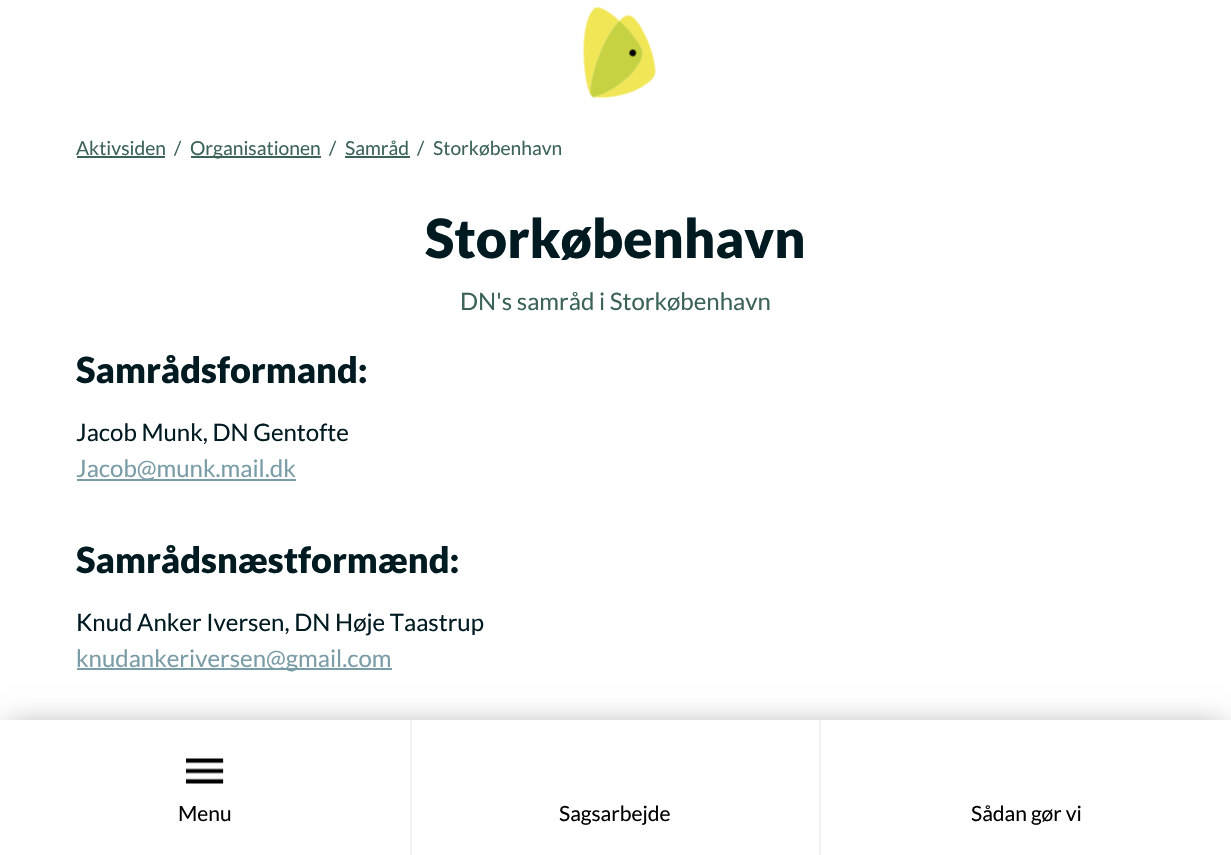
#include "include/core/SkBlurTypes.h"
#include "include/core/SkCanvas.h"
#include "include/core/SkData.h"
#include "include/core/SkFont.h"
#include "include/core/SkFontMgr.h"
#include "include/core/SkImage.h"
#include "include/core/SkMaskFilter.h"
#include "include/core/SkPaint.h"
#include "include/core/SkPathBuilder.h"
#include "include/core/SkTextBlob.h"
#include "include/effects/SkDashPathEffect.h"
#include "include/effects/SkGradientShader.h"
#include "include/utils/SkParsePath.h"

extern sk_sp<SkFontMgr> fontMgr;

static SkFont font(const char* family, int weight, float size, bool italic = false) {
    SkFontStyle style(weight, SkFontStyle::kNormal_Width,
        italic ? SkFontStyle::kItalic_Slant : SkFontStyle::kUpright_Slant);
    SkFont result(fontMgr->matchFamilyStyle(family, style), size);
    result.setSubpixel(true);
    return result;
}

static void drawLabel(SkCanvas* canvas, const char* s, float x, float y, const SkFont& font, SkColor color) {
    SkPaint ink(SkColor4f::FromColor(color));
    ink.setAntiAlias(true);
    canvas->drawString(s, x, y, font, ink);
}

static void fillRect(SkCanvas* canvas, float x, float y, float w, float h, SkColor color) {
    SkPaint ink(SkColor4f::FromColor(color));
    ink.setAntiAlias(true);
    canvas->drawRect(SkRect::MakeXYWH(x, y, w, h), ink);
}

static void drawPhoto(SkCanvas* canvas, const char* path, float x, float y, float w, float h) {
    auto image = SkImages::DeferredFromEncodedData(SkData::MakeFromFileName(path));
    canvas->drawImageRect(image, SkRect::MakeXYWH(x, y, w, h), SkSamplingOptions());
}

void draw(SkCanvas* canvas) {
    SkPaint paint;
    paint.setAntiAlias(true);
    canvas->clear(0xFFFFFFFF);
    drawPhoto(canvas, "assets/img1.png", 583, 7, 73, 91);
    SkFont font1 = font("Lato", 400, 19.25f);
    drawLabel(canvas, "Aktivsiden", 76, 155, font1, 0xFF3C6359);
    fillRect(canvas, 77, 156, 88, 2, 0xFF3C6359);
    drawLabel(canvas, "/", 174, 155, font1, 0xFF3C6359);
    fillRect(canvas, 191, 156, 130, 2, 0xFF3C6359);
    drawLabel(canvas, "Organisationen", 190, 155, font1, 0xFF3C6359);
    drawLabel(canvas, "/", 329, 155, font1, 0xFF3C6359);
    drawLabel(canvas, "Samråd", 345, 155, font1, 0xFF3C6359);
    fillRect(canvas, 345, 156, 65, 2, 0xFF3C6359);
    drawLabel(canvas, "/", 417, 155, font1, 0xFF3C6359);
    drawLabel(canvas, "Storkøbenhavn", 433, 155, font1, 0xFF3C6359);
    SkFont font2 = font("Lato", 900, 54);
    drawLabel(canvas, "Storkøbenhavn", 425, 258, font2, 0xFF001A22);
    SkFont font3 = font("Lato", 400, 24);
    drawLabel(canvas, "DN's samråd i Storkøbenhavn", 460, 310, font3, 0xFF3C6359);
    SkFont font4 = font("Lato", 900, 36);
    drawLabel(canvas, "Samrådsformand:", 76, 383, font4, 0xFF001A22);
    drawLabel(canvas, "Jacob Munk, DN Gentofte", 76, 441, font3, 0xFF001A22);
    fillRect(canvas, 77, 479, 219, 2, 0xFF7A9CA7);
    drawLabel(canvas, "Jacob@munk.mail.dk", 76, 477, font3, 0xFF7A9CA7);
    drawLabel(canvas, "Samrådsnæstformænd:", 76, 573, font4, 0xFF001A22);
    drawLabel(canvas, "Knud Anker Iversen, DN Høje Taastrup", 76, 631, font3, 0xFF001A22);
    fillRect(canvas, 77, 668, 315, 2, 0xFF7A9CA7);
    drawLabel(canvas, "knudankeriversen@gmail.com", 76, 667, font3, 0xFF7A9CA7);
    paint.setColor(0x66000000);
    paint.setMaskFilter(SkMaskFilter::MakeBlur(kNormal_SkBlurStyle, 15));
    canvas->drawRect(SkRect::MakeXYWH(8, 728, 1216, 120), paint);
    paint.setMaskFilter(nullptr);
    fillRect(canvas, 0, 720, 1231, 135, 0xFFFFFFFF);
    fillRect(canvas, 410, 720, 2, 135, 0xFFF1F1F1);
    drawPhoto(canvas, "assets/img2.png", 186, 758, 38, 26);
    SkFont font5 = font("Lato", 400, 21);
    drawLabel(canvas, "Menu", 178, 821, font5, 0xFF000000);
    fillRect(canvas, 819, 720, 2, 135, 0xFFF1F1F1);
    drawLabel(canvas, "Sagsarbejde", 559, 821, font5, 0xFF000000);
    drawLabel(canvas, "Sådan gør vi", 971, 821, font5, 0xFF000000);
}
